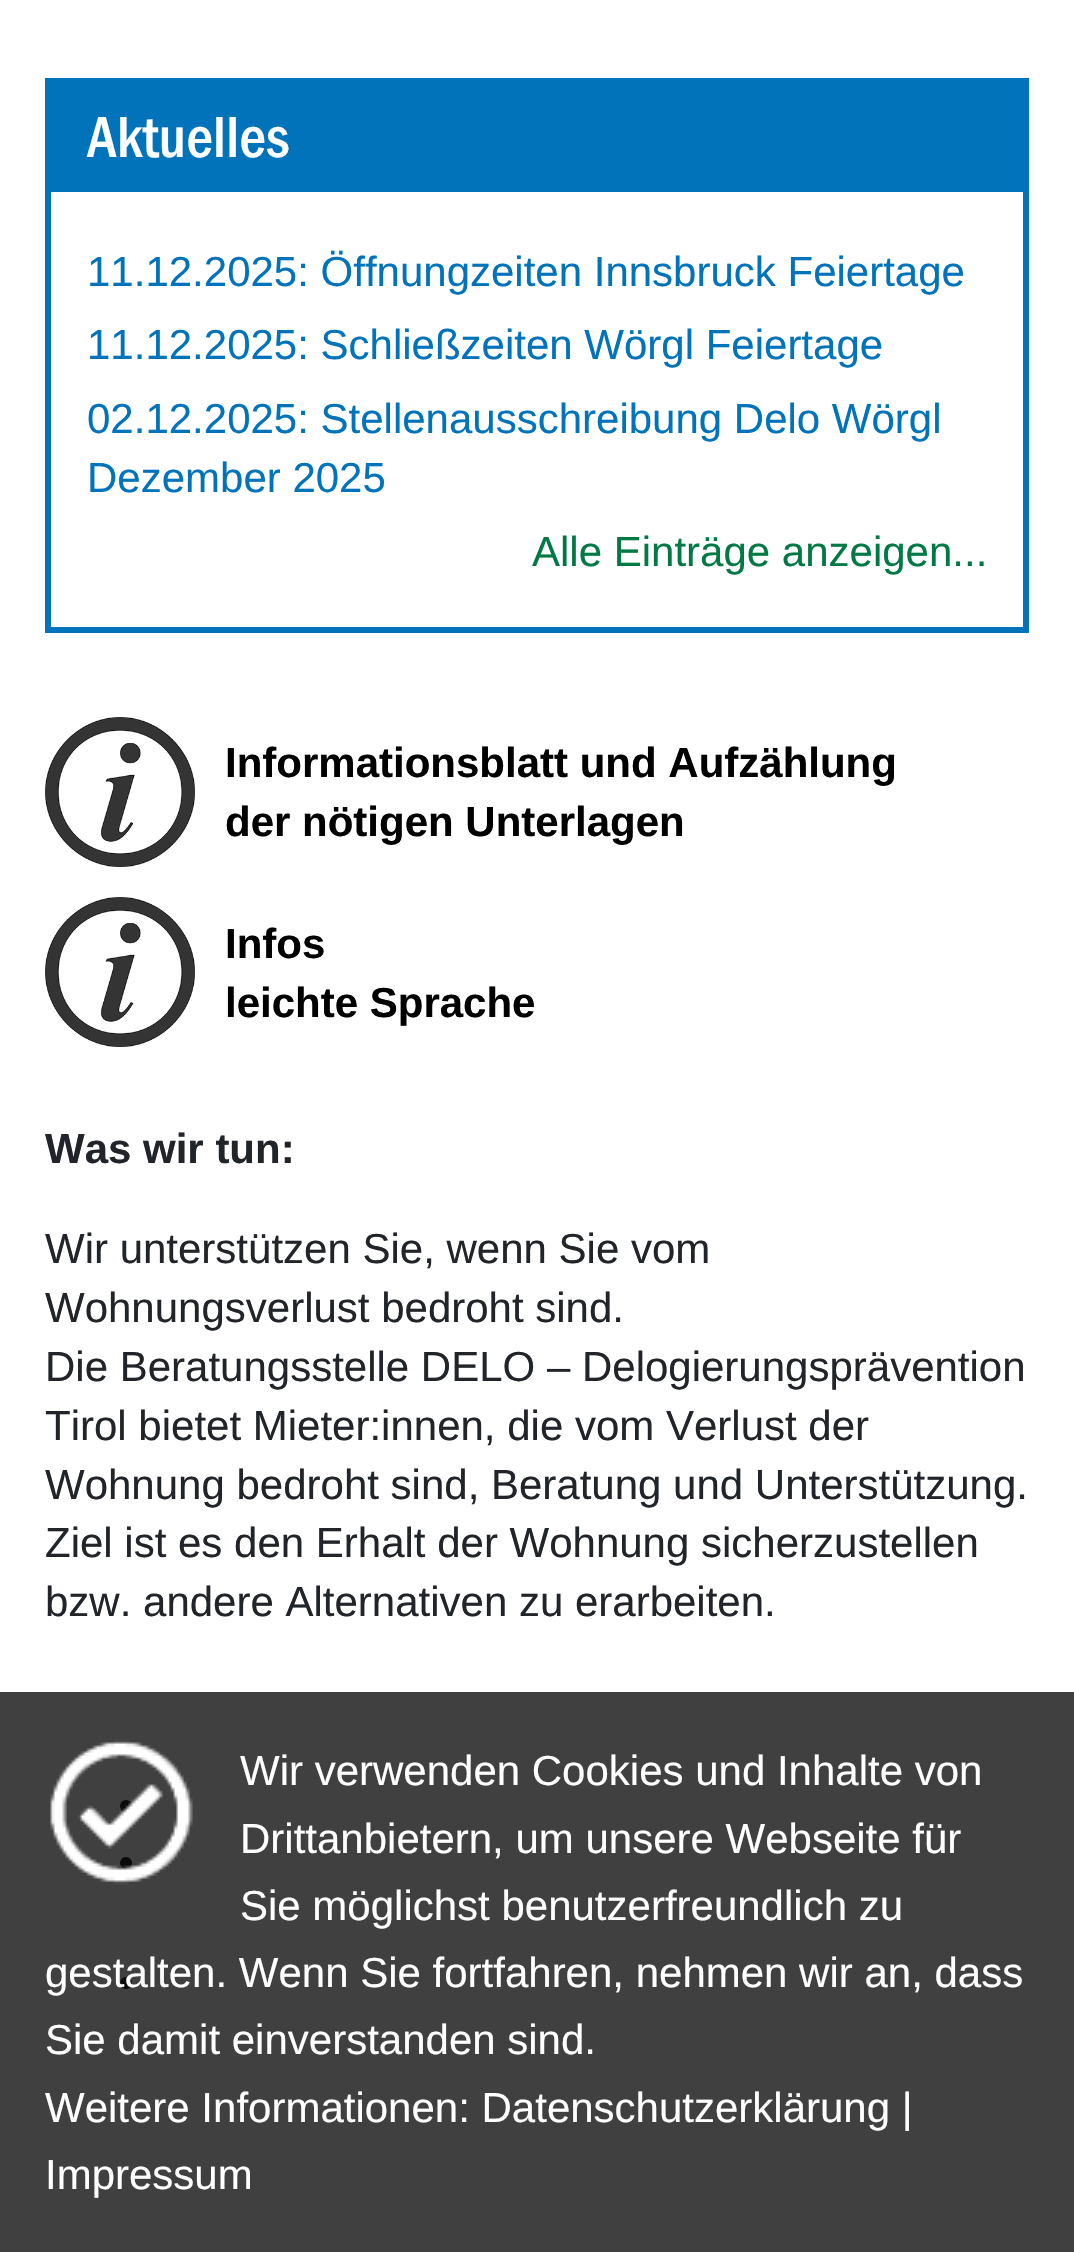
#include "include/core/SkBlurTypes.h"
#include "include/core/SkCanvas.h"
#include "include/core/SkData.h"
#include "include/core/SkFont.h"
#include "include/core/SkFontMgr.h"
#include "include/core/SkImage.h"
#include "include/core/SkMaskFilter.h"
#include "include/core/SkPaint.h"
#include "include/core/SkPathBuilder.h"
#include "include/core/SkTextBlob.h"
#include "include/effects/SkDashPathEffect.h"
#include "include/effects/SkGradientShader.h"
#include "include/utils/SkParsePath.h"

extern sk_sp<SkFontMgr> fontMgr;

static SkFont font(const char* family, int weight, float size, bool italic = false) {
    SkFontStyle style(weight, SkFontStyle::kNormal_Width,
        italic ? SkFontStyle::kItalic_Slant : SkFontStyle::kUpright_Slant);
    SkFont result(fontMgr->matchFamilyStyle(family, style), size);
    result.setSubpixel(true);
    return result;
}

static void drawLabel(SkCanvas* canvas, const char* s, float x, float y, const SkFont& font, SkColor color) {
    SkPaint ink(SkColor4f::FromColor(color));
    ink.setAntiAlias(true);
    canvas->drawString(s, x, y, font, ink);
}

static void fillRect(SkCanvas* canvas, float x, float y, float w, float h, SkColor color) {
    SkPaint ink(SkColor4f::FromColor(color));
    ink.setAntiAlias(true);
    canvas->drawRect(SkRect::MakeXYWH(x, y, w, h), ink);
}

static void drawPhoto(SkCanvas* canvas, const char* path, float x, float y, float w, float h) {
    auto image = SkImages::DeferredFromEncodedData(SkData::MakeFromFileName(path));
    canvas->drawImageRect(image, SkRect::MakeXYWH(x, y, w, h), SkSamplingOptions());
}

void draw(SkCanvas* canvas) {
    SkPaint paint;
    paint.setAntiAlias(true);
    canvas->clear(0xFFFFFFFF);
    fillRect(canvas, 45, 78, 984, 114, 0xFF0073BA);
    SkFont font1 = font("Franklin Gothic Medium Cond", 500, 60);
    drawLabel(canvas, "Aktuelles", 87, 157, font1, 0xFFFFFFFF);
    fillRect(canvas, 1023, 192, 6, 441, 0xFF0073BA);
    fillRect(canvas, 45, 627, 984, 6, 0xFF0073BA);
    fillRect(canvas, 45, 192, 6, 441, 0xFF0073BA);
    SkFont font2 = font("Liberation Sans", 400, 42);
    drawLabel(canvas, "11.12.2025: Öffnungzeiten Innsbruck Feiertage", 87, 286, font2, 0xFF0073BA);
    drawLabel(canvas, "11.12.2025: Schließzeiten Wörgl Feiertage", 87, 359, font2, 0xFF0073BA);
    drawLabel(canvas, "02.12.2025: Stellenausschreibung Delo Wörgl", 87, 433, font2, 0xFF0073BA);
    drawLabel(canvas, "Dezember 2025", 87, 492, font2, 0xFF0073BA);
    drawLabel(canvas, "Alle Einträge anzeigen...", 532, 566, font2, 0xFF007945);
    drawPhoto(canvas, "assets/img1.png", 45, 717, 150, 150);
    SkFont font3 = font("Liberation Sans", 700, 42);
    drawLabel(canvas, "Informationsblatt und Aufzählung", 225, 777, font3, 0xFF000000);
    drawLabel(canvas, "der nötigen Unterlagen", 225, 836, font3, 0xFF000000);
    drawPhoto(canvas, "assets/img1.png", 45, 897, 150, 150);
    drawLabel(canvas, "Infos", 225, 958, font3, 0xFF000000);
    drawLabel(canvas, "leichte Sprache", 225, 1017, font3, 0xFF000000);
    drawLabel(canvas, "Was wir tun:", 45, 1163, font3, 0xFF212529);
    drawLabel(canvas, "Wir unterstützen Sie, wenn Sie vom", 45, 1263, font2, 0xFF212529);
    drawLabel(canvas, "Wohnungsverlust bedroht sind.", 45, 1322, font2, 0xFF212529);
    drawLabel(canvas, "Die Beratungsstelle DELO – Delogierungsprävention", 45, 1381, font2, 0xFF212529);
    drawLabel(canvas, "Tirol bietet Mieter:innen, die vom Verlust der", 45, 1440, font2, 0xFF212529);
    drawLabel(canvas, "Wohnung bedroht sind, Beratung und Unterstützung.", 45, 1499, font2, 0xFF212529);
    drawLabel(canvas, "Ziel ist es den Erhalt der Wohnung sicherzustellen", 45, 1557, font2, 0xFF212529);
    drawLabel(canvas, "bzw. andere Alternativen zu erarbeiten.", 45, 1616, font2, 0xFF212529);
    paint.setColor(0xFF212529);
    canvas->drawCircle(126, 1806, 6, paint);
    canvas->drawCircle(126, 1863, 6, paint);
    canvas->drawCircle(126, 1983, 6, paint);
    fillRect(canvas, 0, 1692, 1074, 560, 0xBF000000);
    drawPhoto(canvas, "assets/img2.png", 50, 1739, 143, 146);
    drawLabel(canvas, "Wir verwenden Cookies und Inhalte von", 240, 1785, font2, 0xFFFFFFFF);
    drawLabel(canvas, "Drittanbietern, um unsere Webseite für", 240, 1853, font2, 0xFFFFFFFF);
    drawLabel(canvas, "Sie möglichst benutzerfreundlich zu", 240, 1920, font2, 0xFFFFFFFF);
    drawLabel(canvas, "gestalten. Wenn Sie fortfahren, nehmen wir an, dass", 45, 1987, font2, 0xFFFFFFFF);
    drawLabel(canvas, "Sie damit einverstanden sind.", 45, 2054, font2, 0xFFFFFFFF);
    drawLabel(canvas, "Weitere Informationen: Datenschutzerklärung |", 45, 2122, font2, 0xFFFFFFFF);
    drawLabel(canvas, "Impressum", 45, 2189, font2, 0xFFFFFFFF);
}
